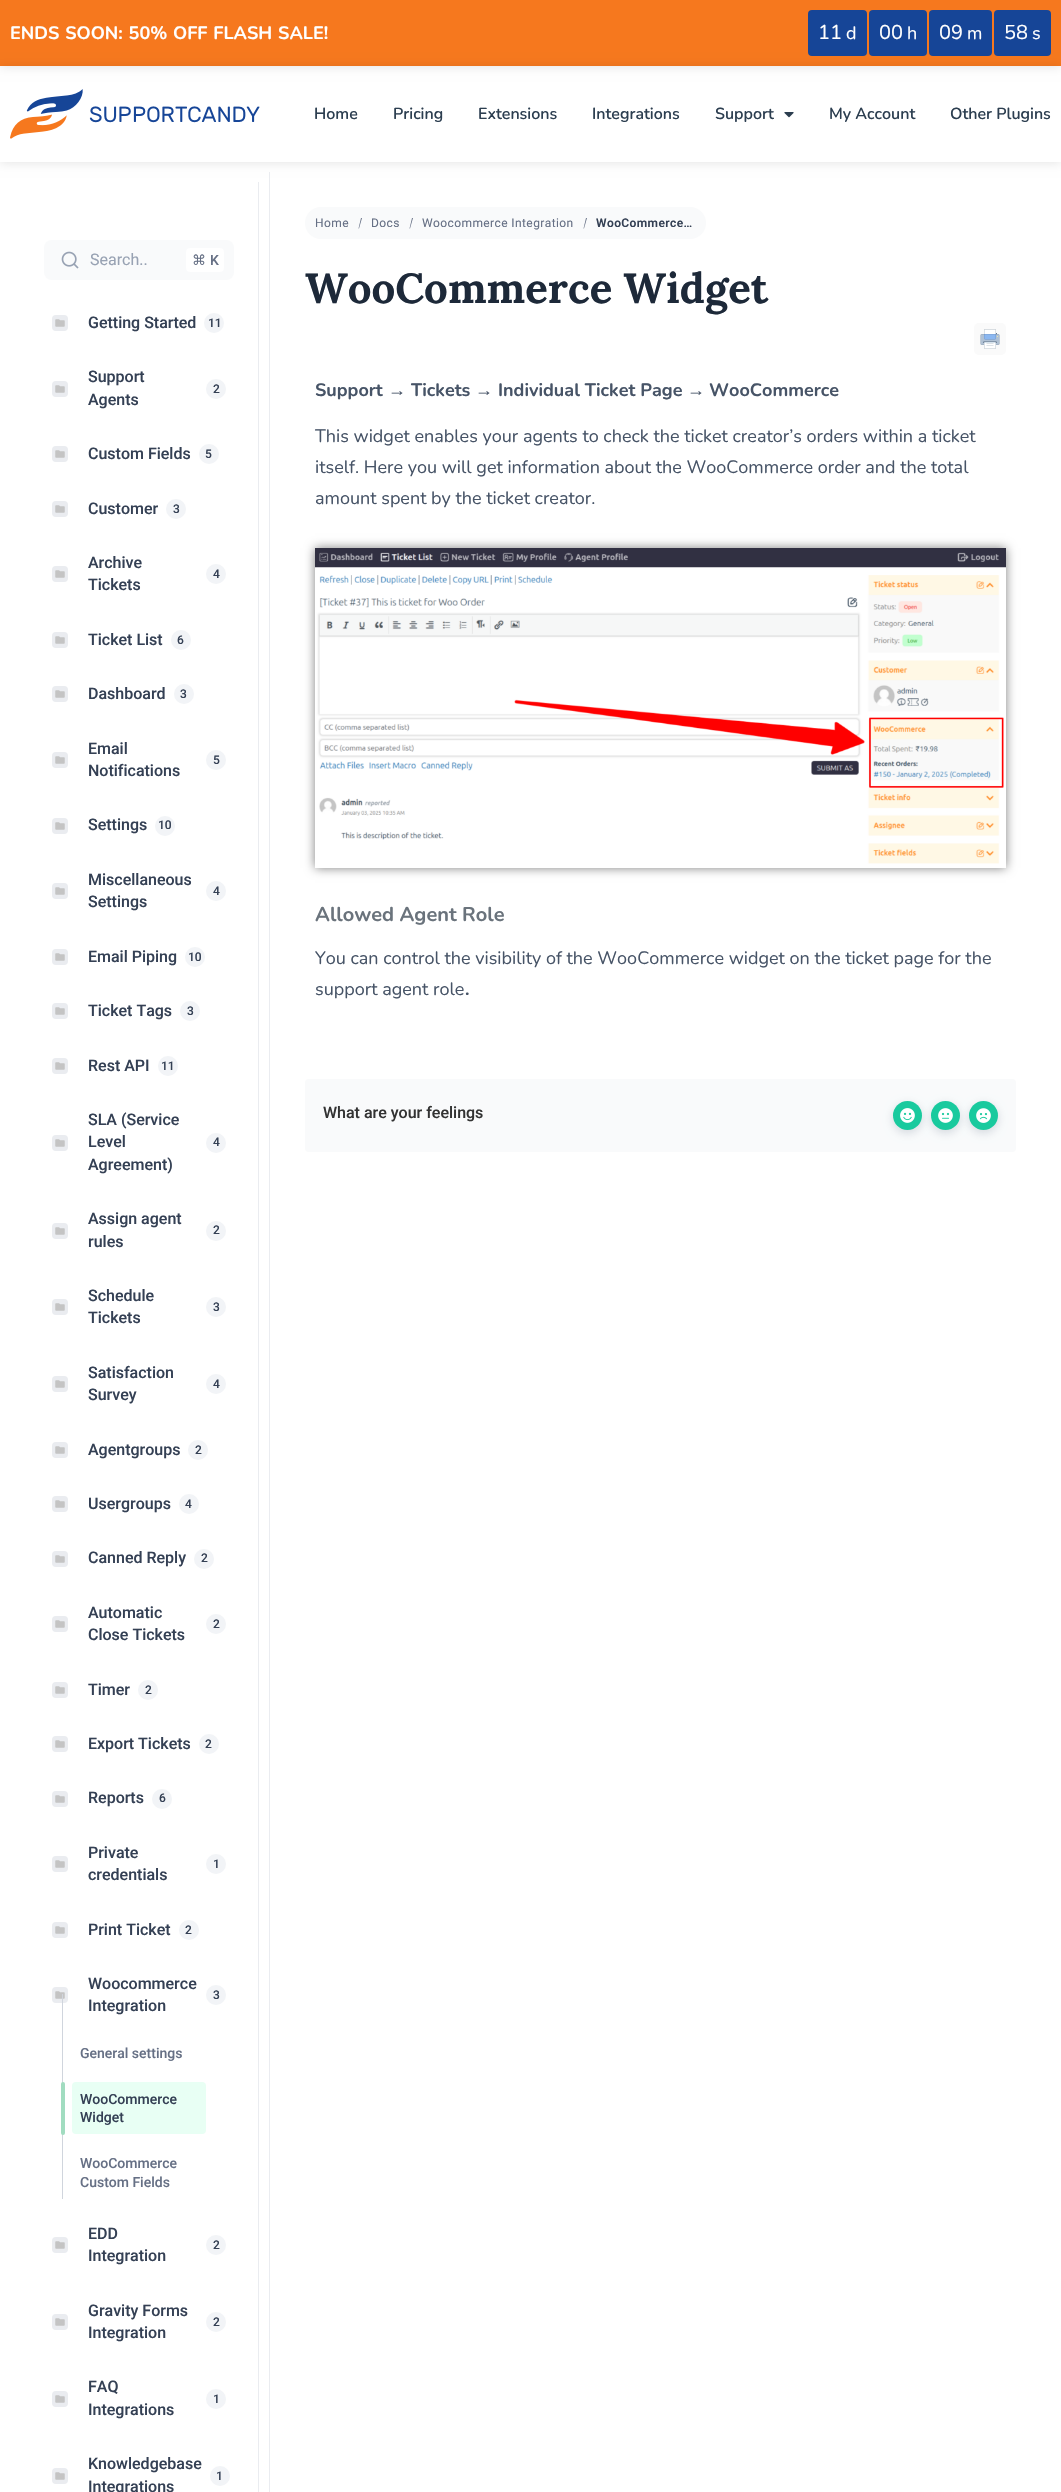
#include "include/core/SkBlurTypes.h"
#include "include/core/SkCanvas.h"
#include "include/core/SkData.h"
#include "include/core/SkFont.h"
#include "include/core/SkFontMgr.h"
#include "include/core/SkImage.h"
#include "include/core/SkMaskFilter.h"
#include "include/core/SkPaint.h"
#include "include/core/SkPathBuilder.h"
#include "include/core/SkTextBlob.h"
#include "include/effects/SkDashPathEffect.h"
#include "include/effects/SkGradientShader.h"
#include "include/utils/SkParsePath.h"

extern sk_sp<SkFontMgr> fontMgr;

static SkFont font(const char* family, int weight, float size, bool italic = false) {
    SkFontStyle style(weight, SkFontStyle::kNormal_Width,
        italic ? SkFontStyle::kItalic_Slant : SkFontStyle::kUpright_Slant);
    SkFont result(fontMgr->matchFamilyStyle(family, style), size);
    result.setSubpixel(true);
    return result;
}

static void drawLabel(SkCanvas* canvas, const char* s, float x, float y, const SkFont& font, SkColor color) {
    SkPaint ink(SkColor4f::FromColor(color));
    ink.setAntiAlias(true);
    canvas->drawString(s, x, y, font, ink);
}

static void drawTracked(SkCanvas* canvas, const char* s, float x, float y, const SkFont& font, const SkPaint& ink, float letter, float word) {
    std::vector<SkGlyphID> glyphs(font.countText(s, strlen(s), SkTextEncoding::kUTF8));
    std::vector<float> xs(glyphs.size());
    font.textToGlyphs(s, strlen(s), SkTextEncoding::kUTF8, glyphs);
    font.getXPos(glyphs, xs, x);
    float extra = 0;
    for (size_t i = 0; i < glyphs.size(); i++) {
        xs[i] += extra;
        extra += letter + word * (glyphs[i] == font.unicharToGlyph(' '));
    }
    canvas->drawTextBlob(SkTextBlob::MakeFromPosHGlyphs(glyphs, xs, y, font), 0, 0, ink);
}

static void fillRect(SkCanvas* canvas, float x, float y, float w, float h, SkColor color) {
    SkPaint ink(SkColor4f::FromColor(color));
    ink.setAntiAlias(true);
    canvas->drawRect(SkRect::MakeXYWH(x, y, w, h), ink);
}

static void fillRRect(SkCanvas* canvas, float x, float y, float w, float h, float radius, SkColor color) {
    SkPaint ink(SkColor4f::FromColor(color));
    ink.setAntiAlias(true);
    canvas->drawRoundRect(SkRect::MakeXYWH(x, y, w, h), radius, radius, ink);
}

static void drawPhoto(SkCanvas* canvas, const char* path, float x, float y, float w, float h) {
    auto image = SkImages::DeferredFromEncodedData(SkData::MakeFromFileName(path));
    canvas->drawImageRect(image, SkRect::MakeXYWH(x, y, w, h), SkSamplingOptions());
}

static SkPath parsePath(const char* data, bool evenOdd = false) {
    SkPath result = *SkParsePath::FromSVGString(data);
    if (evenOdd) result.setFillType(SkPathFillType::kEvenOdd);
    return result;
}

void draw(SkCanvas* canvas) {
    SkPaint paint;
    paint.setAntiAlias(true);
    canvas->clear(0xFFFFFFFF);
    paint.setColor(0x1A000000);
    paint.setMaskFilter(SkMaskFilter::MakeBlur(kNormal_SkBlurStyle, 5));
    canvas->drawRect(SkRect::MakeXYWH(0, 1, 1061, 66), paint);
    paint.setMaskFilter(nullptr);
    fillRect(canvas, 0, 0, 1061, 66, 0xFFF6781E);
    SkFont font1 = font("Nunito", 700, 18);
    paint.setColor(0xFFFFFFFF);
    drawTracked(canvas, "ENDS SOON: 50% OFF FLASH SALE!", 10, 39, font1, paint, 0, 1);
    fillRRect(canvas, 808, 10, 59, 46, 4, 0xFF164597);
    SkFont font2 = font("Nunito", 400, 20);
    drawLabel(canvas, "11", 818, 39, font2, 0xFFFFFFFF);
    SkFont font3 = font("Nunito", 400, 18);
    drawLabel(canvas, "d", 846, 39, font3, 0xFFFFFFFF);
    fillRRect(canvas, 869, 10, 58, 46, 4, 0xFF164597);
    drawLabel(canvas, "00", 879, 39, font2, 0xFFFFFFFF);
    drawLabel(canvas, "h", 907, 39, font3, 0xFFFFFFFF);
    fillRRect(canvas, 929, 10, 63, 46, 4, 0xFF164597);
    drawLabel(canvas, "09", 939, 39, font2, 0xFFFFFFFF);
    drawLabel(canvas, "m", 967, 39, font3, 0xFFFFFFFF);
    fillRRect(canvas, 994, 10, 57, 46, 4, 0xFF164597);
    drawLabel(canvas, "58", 1004, 39, font2, 0xFFFFFFFF);
    drawLabel(canvas, "s", 1032, 39, font3, 0xFFFFFFFF);
    canvas->save();
    canvas->clipPath(parsePath("M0 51H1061V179H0ZM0 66H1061V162H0Z", true), true);
    paint.setColor(0x1A000000);
    paint.setMaskFilter(SkMaskFilter::MakeBlur(kNormal_SkBlurStyle, 5));
    canvas->drawRect(SkRect::MakeXYWH(0, 67, 1061, 96), paint);
    paint.setMaskFilter(nullptr);
    canvas->restore();
    drawPhoto(canvas, "assets/img1.png", 10, 89, 250, 50);
    SkFont font4 = font("Nunito", 600, 16);
    drawLabel(canvas, "Home", 314, 119, font4, 0xFF2C3E50);
    drawLabel(canvas, "Pricing", 393, 119, font4, 0xFF2C3E50);
    drawLabel(canvas, "Extensions", 478, 119, font4, 0xFF2C3E50);
    drawLabel(canvas, "Integrations", 592, 119, font4, 0xFF2C3E50);
    drawLabel(canvas, "Support", 715, 119, font4, 0xFF2C3E50);
    drawPhoto(canvas, "assets/img2.png", 784, 112, 10, 6);
    drawLabel(canvas, "My Account", 829, 119, font4, 0xFF2C3E50);
    drawLabel(canvas, "Other Plugins", 950, 119, font4, 0xFF2C3E50);
    fillRect(canvas, 269, 172, 1, 2320, 0xFFEAECF0);
    fillRect(canvas, 258, 182, 1, 2310, 0xFFEAECF0);
    fillRRect(canvas, 44, 240, 190, 40, 8, 0xFFF9FAFB);
    drawPhoto(canvas, "assets/img3.png", 61, 251, 18, 18);
    SkFont font5 = font("Roboto", 400, 16);
    drawLabel(canvas, "Search..", 90, 265, font5, 0xFF98A2B3);
    fillRRect(canvas, 186, 248, 38, 24, 4, 0xFFFFFFFF);
    SkFont font6 = font("DejaVu Sans", 400, 14);
    drawLabel(canvas, "⌘", 192, 265, font6, 0xFF667085);
    SkFont font7 = font("Roboto", 500, 14);
    drawLabel(canvas, "K", 210, 265, font7, 0xFF667085);
    fillRRect(canvas, 52, 315, 16, 16, 4, 0xFFEAECF0);
    drawPhoto(canvas, "assets/img4.png", 55, 319, 10, 8);
    SkFont font8 = font("Roboto", 500, 16);
    drawLabel(canvas, "Getting Started", 88, 328, font8, 0xFF344054);
    paint.setColor(0xFFF2F4F7);
    canvas->drawCircle(214, 323, 10, paint);
    SkFont font9 = font("Roboto", 500, 12);
    drawLabel(canvas, "11", 208, 327, font9, 0xFF344054);
    fillRRect(canvas, 52, 381, 16, 16, 4, 0xFFEAECF0);
    drawPhoto(canvas, "assets/img4.png", 55, 385, 10, 8);
    drawLabel(canvas, "Support", 88, 382, font8, 0xFF344054);
    drawLabel(canvas, "Agents", 88, 405, font8, 0xFF344054);
    canvas->drawCircle(216, 389, 10, paint);
    drawLabel(canvas, "2", 213, 393, font9, 0xFF344054);
    fillRRect(canvas, 52, 446, 16, 16, 4, 0xFFEAECF0);
    drawPhoto(canvas, "assets/img4.png", 55, 450, 10, 8);
    drawLabel(canvas, "Custom Fields", 88, 459, font8, 0xFF344054);
    canvas->drawCircle(209, 454, 10, paint);
    drawLabel(canvas, "5", 205, 458, font9, 0xFF344054);
    fillRRect(canvas, 52, 501, 16, 16, 4, 0xFFEAECF0);
    drawPhoto(canvas, "assets/img4.png", 55, 505, 10, 8);
    drawLabel(canvas, "Customer", 88, 514, font8, 0xFF344054);
    canvas->drawCircle(176, 509, 10, paint);
    drawLabel(canvas, "3", 173, 513, font9, 0xFF344054);
    fillRRect(canvas, 52, 566, 16, 16, 4, 0xFFEAECF0);
    drawPhoto(canvas, "assets/img4.png", 55, 570, 10, 8);
    drawLabel(canvas, "Archive", 88, 568, font8, 0xFF344054);
    drawLabel(canvas, "Tickets", 88, 590, font8, 0xFF344054);
    canvas->drawCircle(216, 574, 10, paint);
    drawLabel(canvas, "4", 213, 578, font9, 0xFF344054);
    fillRRect(canvas, 52, 632, 16, 16, 4, 0xFFEAECF0);
    drawPhoto(canvas, "assets/img4.png", 55, 636, 10, 8);
    drawLabel(canvas, "Ticket List", 88, 645, font8, 0xFF344054);
    canvas->drawCircle(181, 640, 10, paint);
    drawLabel(canvas, "6", 177, 644, font9, 0xFF344054);
    fillRRect(canvas, 52, 686, 16, 16, 4, 0xFFEAECF0);
    drawPhoto(canvas, "assets/img4.png", 55, 690, 10, 8);
    drawLabel(canvas, "Dashboard", 88, 699, font8, 0xFF344054);
    canvas->drawCircle(184, 694, 10, paint);
    drawLabel(canvas, "3", 180, 698, font9, 0xFF344054);
    fillRRect(canvas, 52, 752, 16, 16, 4, 0xFFEAECF0);
    drawPhoto(canvas, "assets/img4.png", 55, 756, 10, 8);
    drawLabel(canvas, "Email", 88, 754, font8, 0xFF344054);
    drawLabel(canvas, "Notifications", 88, 776, font8, 0xFF344054);
    canvas->drawCircle(216, 760, 10, paint);
    drawLabel(canvas, "5", 213, 764, font9, 0xFF344054);
    fillRRect(canvas, 52, 818, 16, 16, 4, 0xFFEAECF0);
    drawPhoto(canvas, "assets/img4.png", 55, 822, 10, 8);
    drawLabel(canvas, "Settings", 88, 830, font8, 0xFF344054);
    canvas->drawCircle(165, 826, 10, paint);
    drawLabel(canvas, "10", 158, 829, font9, 0xFF344054);
    fillRRect(canvas, 52, 883, 16, 16, 4, 0xFFEAECF0);
    drawPhoto(canvas, "assets/img4.png", 55, 887, 10, 8);
    drawLabel(canvas, "Miscellaneous", 88, 885, font8, 0xFF344054);
    drawLabel(canvas, "Settings", 88, 907, font8, 0xFF344054);
    canvas->drawCircle(216, 891, 10, paint);
    drawLabel(canvas, "4", 213, 895, font9, 0xFF344054);
    fillRRect(canvas, 52, 949, 16, 16, 4, 0xFFEAECF0);
    drawPhoto(canvas, "assets/img4.png", 55, 953, 10, 8);
    drawLabel(canvas, "Email Piping", 88, 962, font8, 0xFF344054);
    canvas->drawCircle(195, 957, 10, paint);
    drawLabel(canvas, "10", 188, 961, font9, 0xFF344054);
    fillRRect(canvas, 52, 1003, 16, 16, 4, 0xFFEAECF0);
    drawPhoto(canvas, "assets/img4.png", 55, 1007, 10, 8);
    drawLabel(canvas, "Ticket Tags", 88, 1016, font8, 0xFF344054);
    canvas->drawCircle(190, 1011, 10, paint);
    drawLabel(canvas, "3", 187, 1015, font9, 0xFF344054);
    fillRRect(canvas, 52, 1058, 16, 16, 4, 0xFFEAECF0);
    drawPhoto(canvas, "assets/img4.png", 55, 1062, 10, 8);
    drawLabel(canvas, "Rest API", 88, 1071, font8, 0xFF344054);
    canvas->drawCircle(168, 1066, 10, paint);
    drawLabel(canvas, "11", 161, 1070, font9, 0xFF344054);
    fillRRect(canvas, 52, 1135, 16, 16, 4, 0xFFEAECF0);
    drawPhoto(canvas, "assets/img4.png", 55, 1139, 10, 8);
    drawLabel(canvas, "SLA (Service", 88, 1125, font8, 0xFF344054);
    drawLabel(canvas, "Level", 88, 1147, font8, 0xFF344054);
    drawLabel(canvas, "Agreement)", 88, 1170, font8, 0xFF344054);
    canvas->drawCircle(216, 1143, 10, paint);
    drawLabel(canvas, "4", 213, 1146, font9, 0xFF344054);
    fillRRect(canvas, 52, 1223, 16, 16, 4, 0xFFEAECF0);
    drawPhoto(canvas, "assets/img4.png", 55, 1227, 10, 8);
    drawLabel(canvas, "Assign agent", 88, 1224, font8, 0xFF344054);
    drawLabel(canvas, "rules", 88, 1247, font8, 0xFF344054);
    canvas->drawCircle(216, 1231, 10, paint);
    drawLabel(canvas, "2", 213, 1234, font9, 0xFF344054);
    fillRRect(canvas, 52, 1299, 16, 16, 4, 0xFFEAECF0);
    drawPhoto(canvas, "assets/img4.png", 55, 1303, 10, 8);
    drawLabel(canvas, "Schedule", 88, 1301, font8, 0xFF344054);
    drawLabel(canvas, "Tickets", 88, 1323, font8, 0xFF344054);
    canvas->drawCircle(216, 1307, 10, paint);
    drawLabel(canvas, "3", 213, 1311, font9, 0xFF344054);
    fillRRect(canvas, 52, 1376, 16, 16, 4, 0xFFEAECF0);
    drawPhoto(canvas, "assets/img4.png", 55, 1380, 10, 8);
    drawLabel(canvas, "Satisfaction", 88, 1378, font8, 0xFF344054);
    drawLabel(canvas, "Survey", 88, 1400, font8, 0xFF344054);
    canvas->drawCircle(216, 1384, 10, paint);
    drawLabel(canvas, "4", 213, 1388, font9, 0xFF344054);
    fillRRect(canvas, 52, 1442, 16, 16, 4, 0xFFEAECF0);
    drawPhoto(canvas, "assets/img4.png", 55, 1446, 10, 8);
    drawLabel(canvas, "Agentgroups", 88, 1455, font8, 0xFF344054);
    canvas->drawCircle(198, 1450, 10, paint);
    drawLabel(canvas, "2", 195, 1454, font9, 0xFF344054);
    fillRRect(canvas, 52, 1496, 16, 16, 4, 0xFFEAECF0);
    drawPhoto(canvas, "assets/img4.png", 55, 1500, 10, 8);
    drawLabel(canvas, "Usergroups", 88, 1509, font8, 0xFF344054);
    canvas->drawCircle(189, 1504, 10, paint);
    drawLabel(canvas, "4", 185, 1508, font9, 0xFF344054);
    fillRRect(canvas, 52, 1551, 16, 16, 4, 0xFFEAECF0);
    drawPhoto(canvas, "assets/img4.png", 55, 1555, 10, 8);
    drawLabel(canvas, "Canned Reply", 88, 1563, font8, 0xFF344054);
    canvas->drawCircle(204, 1559, 10, paint);
    drawLabel(canvas, "2", 201, 1562, font9, 0xFF344054);
    fillRRect(canvas, 52, 1616, 16, 16, 4, 0xFFEAECF0);
    drawPhoto(canvas, "assets/img4.png", 55, 1620, 10, 8);
    drawLabel(canvas, "Automatic", 88, 1618, font8, 0xFF344054);
    drawLabel(canvas, "Close Tickets", 88, 1640, font8, 0xFF344054);
    canvas->drawCircle(216, 1624, 10, paint);
    drawLabel(canvas, "2", 213, 1628, font9, 0xFF344054);
    fillRRect(canvas, 52, 1682, 16, 16, 4, 0xFFEAECF0);
    drawPhoto(canvas, "assets/img4.png", 55, 1686, 10, 8);
    drawLabel(canvas, "Timer", 88, 1695, font8, 0xFF344054);
    canvas->drawCircle(148, 1690, 10, paint);
    drawLabel(canvas, "2", 145, 1694, font9, 0xFF344054);
    fillRRect(canvas, 52, 1736, 16, 16, 4, 0xFFEAECF0);
    drawPhoto(canvas, "assets/img4.png", 55, 1740, 10, 8);
    drawLabel(canvas, "Export Tickets", 88, 1749, font8, 0xFF344054);
    canvas->drawCircle(209, 1744, 10, paint);
    drawLabel(canvas, "2", 205, 1748, font9, 0xFF344054);
    fillRRect(canvas, 52, 1791, 16, 16, 4, 0xFFEAECF0);
    drawPhoto(canvas, "assets/img4.png", 55, 1795, 10, 8);
    drawLabel(canvas, "Reports", 88, 1803, font8, 0xFF344054);
    canvas->drawCircle(162, 1799, 10, paint);
    drawLabel(canvas, "6", 159, 1802, font9, 0xFF344054);
    fillRRect(canvas, 52, 1856, 16, 16, 4, 0xFFEAECF0);
    drawPhoto(canvas, "assets/img4.png", 55, 1860, 10, 8);
    drawLabel(canvas, "Private", 88, 1858, font8, 0xFF344054);
    drawLabel(canvas, "credentials", 88, 1880, font8, 0xFF344054);
    canvas->drawCircle(216, 1864, 10, paint);
    drawLabel(canvas, "1", 213, 1868, font9, 0xFF344054);
    fillRRect(canvas, 52, 1922, 16, 16, 4, 0xFFEAECF0);
    drawPhoto(canvas, "assets/img4.png", 55, 1926, 10, 8);
    drawLabel(canvas, "Print Ticket", 88, 1935, font8, 0xFF344054);
    canvas->drawCircle(189, 1930, 10, paint);
    drawLabel(canvas, "2", 185, 1934, font9, 0xFF344054);
    fillRRect(canvas, 52, 1987, 16, 16, 4, 0xFFEAECF0);
    drawPhoto(canvas, "assets/img4.png", 55, 1991, 10, 8);
    fillRect(canvas, 62, 1994, 1, 205, 0xFFD0D5DD);
    drawLabel(canvas, "Woocommerce", 88, 1989, font8, 0xFF344054);
    drawLabel(canvas, "Integration", 88, 2011, font8, 0xFF344054);
    canvas->drawCircle(216, 1995, 10, paint);
    drawLabel(canvas, "3", 213, 1999, font9, 0xFF344054);
    drawLabel(canvas, "General settings", 80, 2058, font7, 0xFF667085);
    fillRRect(canvas, 72, 2082, 134, 52, 4, 0xFFE8FFF4);
    fillRRect(canvas, 61, 2082, 4, 53, 2, 0xFFA1DCC0);
    drawLabel(canvas, "WooCommerce", 80, 2104, font7, 0xFF344054);
    drawLabel(canvas, "Widget", 80, 2122, font7, 0xFF344054);
    drawLabel(canvas, "WooCommerce", 80, 2168, font7, 0xFF667085);
    drawLabel(canvas, "Custom Fields", 80, 2187, font7, 0xFF667085);
    fillRRect(canvas, 52, 2237, 16, 16, 4, 0xFFEAECF0);
    drawPhoto(canvas, "assets/img4.png", 55, 2241, 10, 8);
    drawLabel(canvas, "EDD", 88, 2239, font8, 0xFF344054);
    drawLabel(canvas, "Integration", 88, 2261, font8, 0xFF344054);
    canvas->drawCircle(216, 2245, 10, paint);
    drawLabel(canvas, "2", 213, 2249, font9, 0xFF344054);
    fillRRect(canvas, 52, 2314, 16, 16, 4, 0xFFEAECF0);
    drawPhoto(canvas, "assets/img4.png", 55, 2318, 10, 8);
    drawLabel(canvas, "Gravity Forms", 88, 2316, font8, 0xFF344054);
    drawLabel(canvas, "Integration", 88, 2338, font8, 0xFF344054);
    canvas->drawCircle(216, 2322, 10, paint);
    drawLabel(canvas, "2", 213, 2326, font9, 0xFF344054);
    fillRRect(canvas, 52, 2391, 16, 16, 4, 0xFFEAECF0);
    drawPhoto(canvas, "assets/img4.png", 55, 2395, 10, 8);
    drawLabel(canvas, "FAQ", 88, 2392, font8, 0xFF344054);
    drawLabel(canvas, "Integrations", 88, 2415, font8, 0xFF344054);
    canvas->drawCircle(216, 2399, 10, paint);
    drawLabel(canvas, "1", 213, 2403, font9, 0xFF344054);
    fillRRect(canvas, 52, 2468, 16, 16, 4, 0xFFEAECF0);
    drawPhoto(canvas, "assets/img4.png", 55, 2472, 10, 8);
    drawLabel(canvas, "Knowledgebase", 88, 2469, font8, 0xFF344054);
    drawLabel(canvas, "Integrations", 88, 2492, font8, 0xFF344054);
    canvas->drawCircle(220, 2476, 10, paint);
    drawLabel(canvas, "1", 216, 2480, font9, 0xFF344054);
    fillRRect(canvas, 305, 207, 401, 32, 16, 0xFFF9FAFB);
    SkFont font10 = font("Roboto", 400, 12);
    paint.setColor(0xFF667085);
    drawTracked(canvas, "Home", 315, 227, font10, paint, 0.4f, 0);
    canvas->drawPath(parsePath("M362 218L359 228.5H358.5L361 218ZM413 218L410 228.5H409.5L412 218Z"), paint);
    drawTracked(canvas, "Docs", 371, 227, font10, paint, 0.4f, 0);
    drawTracked(canvas, "Woocommerce Integration", 422, 227, font10, paint, 0.4f, 0);
    canvas->drawPath(parsePath("M587 218L584 228.5H583.5L586 218Z"), paint);
    SkFont font11 = font("Roboto", 600, 12);
    paint.setColor(0xFF344054);
    drawTracked(canvas, "WooCommerce…", 596, 227, font11, paint, 0.4f, 0);
    SkFont font12 = font("Lora", 700, 42);
    drawLabel(canvas, "WooCommerce Widget", 305, 303, font12, 0xFF1D2939);
    fillRRect(canvas, 974, 323, 32, 32, 5, 0xFFFAFAFA);
    drawPhoto(canvas, "assets/img5.png", 980, 329, 20, 20);
    drawLabel(canvas, "Support", 315, 396, font1, 0xFF475467);
    SkFont font13 = font("Liberation Sans", 700, 18);
    drawLabel(canvas, "→", 388, 396, font13, 0xFF475467);
    drawLabel(canvas, "Tickets", 411, 396, font1, 0xFF475467);
    drawLabel(canvas, "→", 475, 396, font13, 0xFF475467);
    drawLabel(canvas, "Individual Ticket Page", 498, 396, font1, 0xFF475467);
    drawLabel(canvas, "→", 687, 396, font13, 0xFF475467);
    drawLabel(canvas, "WooCommerce", 709, 396, font1, 0xFF475467);
    drawLabel(canvas, "This widget enables your agents to check the ticket creator’s orders within a ticket", 315, 442, font3, 0xFF475467);
    drawLabel(canvas, "itself. Here you will get information about the WooCommerce order and the total", 315, 473, font3, 0xFF475467);
    drawLabel(canvas, "amount spent by the ticket creator.", 315, 504, font3, 0xFF475467);
    canvas->save();
    canvas->clipPath(parsePath("M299 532H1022V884H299ZM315 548H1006V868H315Z", true), true);
    paint.setColor(0x80000000);
    paint.setMaskFilter(SkMaskFilter::MakeBlur(kNormal_SkBlurStyle, 5));
    canvas->drawRect(SkRect::MakeXYWH(315, 548, 691, 320), paint);
    paint.setMaskFilter(nullptr);
    canvas->restore();
    drawPhoto(canvas, "assets/img6.png", 315, 548, 691, 316);
    SkFont font14 = font("Nunito", 700, 20);
    drawLabel(canvas, "Allowed Agent Role", 315, 921, font14, 0xFF6A737C);
    drawLabel(canvas, "You can control the visibility of the WooCommerce widget on the ticket page for the", 315, 964, font3, 0xFF475467);
    drawLabel(canvas, "support agent role", 315, 995, font3, 0xFF475467);
    drawLabel(canvas, ".", 465, 995, font1, 0xFF475467);
    fillRRect(canvas, 305, 1079, 711, 73, 4, 0xFFF9FAFB);
    drawLabel(canvas, "What are your feelings", 323, 1118, font8, 0xFF333333);
    paint.setColor(0x26031D3C);
    paint.setMaskFilter(SkMaskFilter::MakeBlur(kNormal_SkBlurStyle, 5));
    canvas->drawRoundRect(SkRect::MakeXYWH(893, 1104, 29, 29), 14.5f, 14.5f, paint);
    paint.setMaskFilter(nullptr);
    paint.setColor(0xFF19CA9E);
    canvas->drawCircle(907.5f, 1115.5f, 14.5f, paint);
    drawPhoto(canvas, "assets/img7.png", 900, 1108, 15, 15);
    paint.setColor(0x26031D3C);
    paint.setMaskFilter(SkMaskFilter::MakeBlur(kNormal_SkBlurStyle, 5));
    canvas->drawRoundRect(SkRect::MakeXYWH(931, 1104, 29, 29), 14.5f, 14.5f, paint);
    paint.setMaskFilter(nullptr);
    paint.setColor(0xFF19CA9E);
    canvas->drawCircle(945.5f, 1115.5f, 14.5f, paint);
    drawPhoto(canvas, "assets/img8.png", 938, 1108, 15, 15);
    paint.setColor(0x26031D3C);
    paint.setMaskFilter(SkMaskFilter::MakeBlur(kNormal_SkBlurStyle, 5));
    canvas->drawRoundRect(SkRect::MakeXYWH(969, 1104, 29, 29), 14.5f, 14.5f, paint);
    paint.setMaskFilter(nullptr);
    paint.setColor(0xFF19CA9E);
    canvas->drawCircle(983.5f, 1115.5f, 14.5f, paint);
    drawPhoto(canvas, "assets/img9.png", 976, 1108, 15, 15);
}
